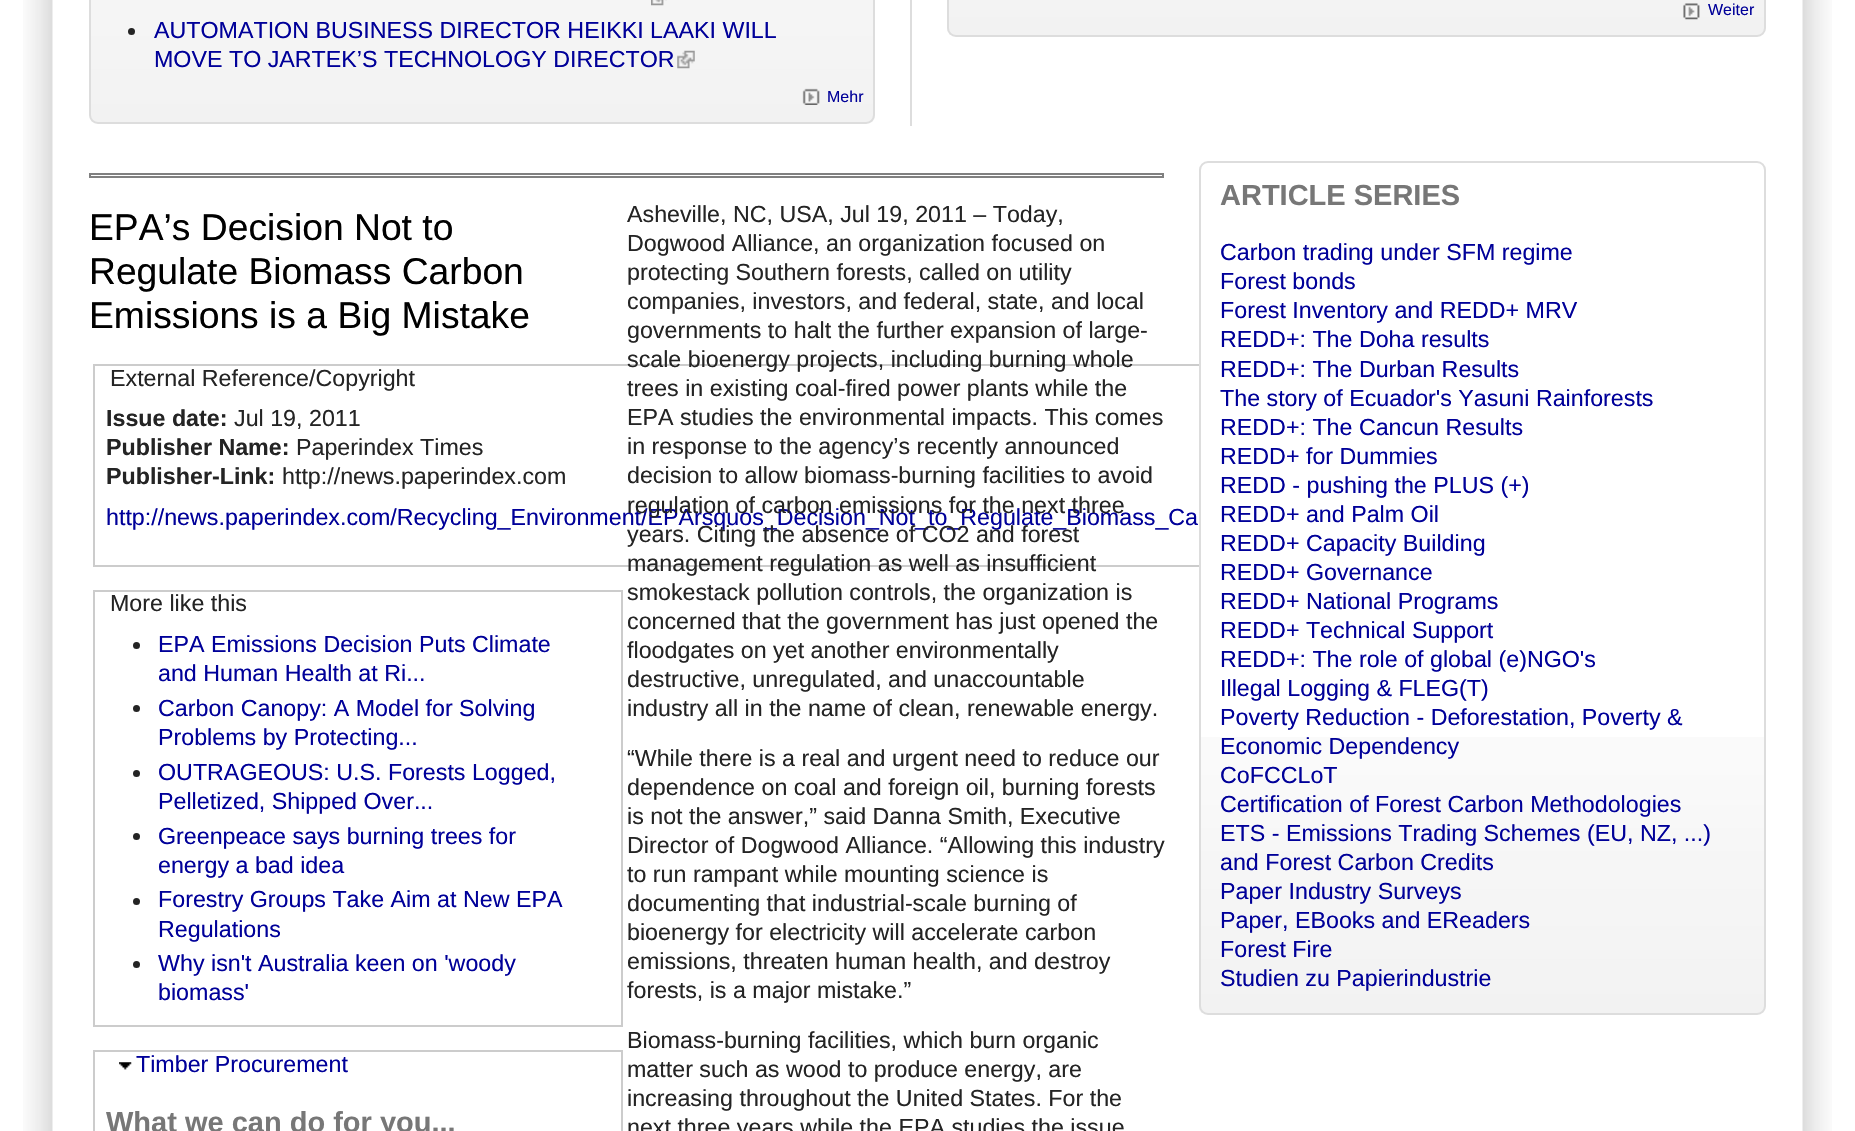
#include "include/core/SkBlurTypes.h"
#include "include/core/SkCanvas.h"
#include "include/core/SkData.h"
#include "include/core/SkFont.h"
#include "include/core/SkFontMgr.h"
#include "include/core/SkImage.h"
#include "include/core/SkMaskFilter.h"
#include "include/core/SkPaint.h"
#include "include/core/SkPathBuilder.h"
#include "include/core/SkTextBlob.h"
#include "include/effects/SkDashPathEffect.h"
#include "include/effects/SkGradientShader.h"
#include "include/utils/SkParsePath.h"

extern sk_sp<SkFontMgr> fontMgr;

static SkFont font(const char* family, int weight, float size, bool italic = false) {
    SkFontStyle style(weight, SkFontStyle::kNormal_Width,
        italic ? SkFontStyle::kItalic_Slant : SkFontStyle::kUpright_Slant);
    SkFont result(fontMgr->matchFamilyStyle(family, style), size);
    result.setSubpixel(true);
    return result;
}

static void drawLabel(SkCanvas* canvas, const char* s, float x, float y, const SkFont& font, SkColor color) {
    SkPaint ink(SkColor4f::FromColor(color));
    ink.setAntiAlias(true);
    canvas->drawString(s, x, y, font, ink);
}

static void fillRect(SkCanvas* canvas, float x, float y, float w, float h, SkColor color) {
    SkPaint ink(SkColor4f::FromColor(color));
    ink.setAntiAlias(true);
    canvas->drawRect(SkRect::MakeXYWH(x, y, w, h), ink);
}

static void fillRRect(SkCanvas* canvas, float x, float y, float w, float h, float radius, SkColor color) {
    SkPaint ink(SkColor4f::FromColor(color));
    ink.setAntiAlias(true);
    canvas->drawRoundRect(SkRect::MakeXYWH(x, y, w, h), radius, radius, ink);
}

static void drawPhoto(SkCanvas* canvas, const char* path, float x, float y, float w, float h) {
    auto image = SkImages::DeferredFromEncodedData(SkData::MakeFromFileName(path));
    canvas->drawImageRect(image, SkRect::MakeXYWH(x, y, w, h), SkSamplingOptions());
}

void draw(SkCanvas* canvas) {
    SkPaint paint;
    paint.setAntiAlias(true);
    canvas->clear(0xFFFFFFFF);
    drawPhoto(canvas, "assets/img1.png", 23, 0, 30, 1131);
    drawPhoto(canvas, "assets/img2.png", 1802, 0, 30, 1131);
    fillRect(canvas, 910, 0, 2, 126, 0xFFDDDDDD);
    drawPhoto(canvas, "assets/img3.png", 947, 0, 819, 35);
    paint.setStroke(true);
    paint.setStrokeWidth(2);
    paint.setColor(0xFFDDDDDD);
    canvas->drawRoundRect(SkRect::MakeXYWH(948, -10, 817, 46), 8, 8, paint);
    drawPhoto(canvas, "assets/img4.png", 1683, 3, 17, 17);
    SkFont font1 = font("Liberation Sans", 400, 16);
    drawLabel(canvas, "Weiter", 1708, 15, font1, 0xFF000099);
    drawPhoto(canvas, "assets/img5.png", 89, 0, 786, 123);
    canvas->drawRoundRect(SkRect::MakeXYWH(90, -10, 784, 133), 8, 8, paint);
    drawPhoto(canvas, "assets/img6.png", 651, 0, 16, 6);
    paint.setStroke(false);
    paint.setColor(0xFF242424);
    canvas->drawCircle(131.5f, 31.5f, 3.5f, paint);
    SkFont font2 = font("Liberation Sans", 400, 23.25f);
    drawLabel(canvas, "AUTOMATION BUSINESS DIRECTOR HEIKKI LAAKI WILL", 154, 38, font2, 0xFF000099);
    drawLabel(canvas, "MOVE TO JARTEK’S TECHNOLOGY DIRECTOR", 154, 67, font2, 0xFF000099);
    drawPhoto(canvas, "assets/img7.png", 677, 50, 18, 19);
    drawPhoto(canvas, "assets/img8.png", 802, 88, 18, 17);
    drawLabel(canvas, "Mehr", 827, 102, font1, 0xFF000099);
    paint.setStroke(true);
    paint.setColor(0xFF808080);
    canvas->drawRect(SkRect::MakeXYWH(90, 174, 1073, 3), paint);
    drawLabel(canvas, "Asheville, NC, USA, Jul 19, 2011 – Today,", 627, 222, font2, 0xFF242424);
    drawLabel(canvas, "Dogwood Alliance, an organization focused on", 627, 251, font2, 0xFF242424);
    drawLabel(canvas, "protecting Southern forests, called on utility", 627, 280, font2, 0xFF242424);
    drawLabel(canvas, "companies, investors, and federal, state, and local", 627, 309, font2, 0xFF242424);
    drawLabel(canvas, "governments to halt the further expansion of large-", 627, 338, font2, 0xFF242424);
    paint.setColor(0xFFCCCCCC);
    canvas->drawRect(SkRect::MakeXYWH(94, 365, 1230, 201), paint);
    drawLabel(canvas, "scale bioenergy projects, including burning whole", 627, 367, font2, 0xFF242424);
    drawLabel(canvas, "trees in existing coal-fired power plants while the", 627, 396, font2, 0xFF242424);
    drawLabel(canvas, "EPA studies the environmental impacts. This comes", 627, 425, font2, 0xFF242424);
    drawLabel(canvas, "in response to the agency’s recently announced", 627, 454, font2, 0xFF242424);
    drawLabel(canvas, "decision to allow biomass-burning facilities to avoid", 627, 483, font2, 0xFF242424);
    drawLabel(canvas, "http://news.paperindex.com/Recycling_Environment/EPArsquos_Decision_Not_to_Regulate_Biomass_Ca", 106, 525, font2, 0xFF000099);
    drawLabel(canvas, "regulation of carbon emissions for the next three", 627, 513, font2, 0xFF242424);
    drawLabel(canvas, "years. Citing the absence of CO2 and forest", 627, 542, font2, 0xFF242424);
    drawLabel(canvas, "management regulation as well as insufficient", 627, 571, font2, 0xFF242424);
    drawLabel(canvas, "smokestack pollution controls, the organization is", 627, 600, font2, 0xFF242424);
    drawLabel(canvas, "concerned that the government has just opened the", 627, 629, font2, 0xFF242424);
    drawLabel(canvas, "floodgates on yet another environmentally", 627, 658, font2, 0xFF242424);
    drawLabel(canvas, "destructive, unregulated, and unaccountable", 627, 687, font2, 0xFF242424);
    drawLabel(canvas, "industry all in the name of clean, renewable energy.", 627, 716, font2, 0xFF242424);
    drawLabel(canvas, "“While there is a real and urgent need to reduce our", 627, 766, font2, 0xFF242424);
    drawLabel(canvas, "dependence on coal and foreign oil, burning forests", 627, 795, font2, 0xFF242424);
    drawLabel(canvas, "is not the answer,” said Danna Smith, Executive", 627, 824, font2, 0xFF242424);
    drawLabel(canvas, "Director of Dogwood Alliance. “Allowing this industry", 627, 853, font2, 0xFF242424);
    drawLabel(canvas, "to run rampant while mounting science is", 627, 882, font2, 0xFF242424);
    drawLabel(canvas, "documenting that industrial-scale burning of", 627, 911, font2, 0xFF242424);
    drawLabel(canvas, "bioenergy for electricity will accelerate carbon", 627, 940, font2, 0xFF242424);
    drawLabel(canvas, "emissions, threaten human health, and destroy", 627, 969, font2, 0xFF242424);
    drawLabel(canvas, "forests, is a major mistake.”", 627, 998, font2, 0xFF242424);
    drawLabel(canvas, "Biomass-burning facilities, which burn organic", 627, 1048, font2, 0xFF242424);
    drawLabel(canvas, "matter such as wood to produce energy, are", 627, 1077, font2, 0xFF242424);
    drawLabel(canvas, "increasing throughout the United States. For the", 627, 1106, font2, 0xFF242424);
    drawLabel(canvas, "next three years while the EPA studies the issue", 627, 1135, font2, 0xFF242424);
    SkFont font3 = font("Liberation Sans", 400, 37.25f);
    drawLabel(canvas, "EPA’s Decision Not to", 89, 240, font3, 0xFF000000);
    drawLabel(canvas, "Regulate Biomass Carbon", 89, 284, font3, 0xFF000000);
    drawLabel(canvas, "Emissions is a Big Mistake", 89, 328, font3, 0xFF000000);
    drawLabel(canvas, "External Reference/Copyright", 110, 386, font2, 0xFF242424);
    SkFont font4 = font("Liberation Sans", 700, 23.25f);
    drawLabel(canvas, "Issue date:", 106, 426, font4, 0xFF242424);
    drawLabel(canvas, "Jul 19, 2011", 234, 426, font2, 0xFF242424);
    drawLabel(canvas, "Publisher Name:", 106, 455, font4, 0xFF242424);
    drawLabel(canvas, "Paperindex Times", 296, 455, font2, 0xFF242424);
    drawLabel(canvas, "Publisher-Link:", 106, 484, font4, 0xFF242424);
    drawLabel(canvas, "http://news.paperindex.com", 282, 484, font2, 0xFF242424);
    canvas->drawRect(SkRect::MakeXYWH(94, 591, 528, 435), paint);
    drawLabel(canvas, "More like this", 110, 611, font2, 0xFF242424);
    paint.setStroke(false);
    paint.setColor(0xFF242424);
    canvas->drawCircle(136.5f, 645.5f, 3.5f, paint);
    drawLabel(canvas, "EPA Emissions Decision Puts Climate", 158, 652, font2, 0xFF000099);
    drawLabel(canvas, "and Human Health at Ri...", 158, 681, font2, 0xFF000099);
    canvas->drawCircle(136.5f, 708.5f, 3.5f, paint);
    drawLabel(canvas, "Carbon Canopy: A Model for Solving", 158, 716, font2, 0xFF000099);
    drawLabel(canvas, "Problems by Protecting...", 158, 745, font2, 0xFF000099);
    canvas->drawCircle(136.5f, 773.5f, 3.5f, paint);
    drawLabel(canvas, "OUTRAGEOUS: U.S. Forests Logged,", 158, 780, font2, 0xFF000099);
    drawLabel(canvas, "Pelletized, Shipped Over...", 158, 809, font2, 0xFF000099);
    canvas->drawCircle(136.5f, 836.5f, 3.5f, paint);
    drawLabel(canvas, "Greenpeace says burning trees for", 158, 844, font2, 0xFF000099);
    drawLabel(canvas, "energy a bad idea", 158, 873, font2, 0xFF000099);
    canvas->drawCircle(136.5f, 901.5f, 3.5f, paint);
    drawLabel(canvas, "Forestry Groups Take Aim at New EPA", 158, 907, font2, 0xFF000099);
    drawLabel(canvas, "Regulations", 158, 937, font2, 0xFF000099);
    canvas->drawCircle(136.5f, 964.5f, 3.5f, paint);
    drawLabel(canvas, "Why isn't Australia keen on 'woody", 158, 971, font2, 0xFF000099);
    drawLabel(canvas, "biomass'", 158, 1000, font2, 0xFF000099);
    paint.setStroke(true);
    paint.setColor(0xFFCCCCCC);
    canvas->drawRect(SkRect::MakeXYWH(94, 1051, 528, 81), paint);
    drawPhoto(canvas, "assets/img9.png", 119, 1062, 13, 8);
    drawLabel(canvas, "Timber Procurement", 136, 1072, font2, 0xFF000099);
    SkFont font5 = font("Liberation Sans", 700, 29);
    drawLabel(canvas, "What we can do for you...", 106, 1132, font5, 0xFF777777);
    fillRRect(canvas, 1199, 161, 567, 854, 9, 0xFFFFFFFF);
    drawPhoto(canvas, "assets/img10.png", 1199, 737, 567, 276);
    paint.setColor(0xFFDDDDDD);
    canvas->drawRoundRect(SkRect::MakeXYWH(1200, 162, 565, 852), 8, 8, paint);
    drawLabel(canvas, "ARTICLE SERIES", 1220, 205, font5, 0xFF777777);
    drawLabel(canvas, "Carbon trading under SFM regime", 1220, 260, font2, 0xFF000099);
    drawLabel(canvas, "Forest bonds", 1220, 289, font2, 0xFF000099);
    drawLabel(canvas, "Forest Inventory and REDD+ MRV", 1220, 318, font2, 0xFF000099);
    drawLabel(canvas, "REDD+: The Doha results", 1220, 347, font2, 0xFF000099);
    drawLabel(canvas, "REDD+: The Durban Results", 1220, 377, font2, 0xFF000099);
    drawLabel(canvas, "The story of Ecuador's Yasuni Rainforests", 1220, 406, font2, 0xFF000099);
    drawLabel(canvas, "REDD+: The Cancun Results", 1220, 435, font2, 0xFF000099);
    drawLabel(canvas, "REDD+ for Dummies", 1220, 464, font2, 0xFF000099);
    drawLabel(canvas, "REDD - pushing the PLUS (+)", 1220, 493, font2, 0xFF000099);
    drawLabel(canvas, "REDD+ and Palm Oil", 1220, 522, font2, 0xFF000099);
    drawLabel(canvas, "REDD+ Capacity Building", 1220, 551, font2, 0xFF000099);
    drawLabel(canvas, "REDD+ Governance", 1220, 580, font2, 0xFF000099);
    drawLabel(canvas, "REDD+ National Programs", 1220, 609, font2, 0xFF000099);
    drawLabel(canvas, "REDD+ Technical Support", 1220, 638, font2, 0xFF000099);
    drawLabel(canvas, "REDD+: The role of global (e)NGO's", 1220, 667, font2, 0xFF000099);
    drawLabel(canvas, "Illegal Logging & FLEG(T)", 1220, 696, font2, 0xFF000099);
    drawLabel(canvas, "Poverty Reduction - Deforestation, Poverty &", 1220, 725, font2, 0xFF000099);
    drawLabel(canvas, "Economic Dependency", 1220, 754, font2, 0xFF000099);
    drawLabel(canvas, "CoFCCLoT", 1220, 783, font2, 0xFF000099);
    drawLabel(canvas, "Certification of Forest Carbon Methodologies", 1220, 812, font2, 0xFF000099);
    drawLabel(canvas, "ETS - Emissions Trading Schemes (EU, NZ, ...)", 1220, 841, font2, 0xFF000099);
    drawLabel(canvas, "and Forest Carbon Credits", 1220, 870, font2, 0xFF000099);
    drawLabel(canvas, "Paper Industry Surveys", 1220, 899, font2, 0xFF000099);
    drawLabel(canvas, "Paper, EBooks and EReaders", 1220, 928, font2, 0xFF000099);
    drawLabel(canvas, "Forest Fire", 1220, 957, font2, 0xFF000099);
    drawLabel(canvas, "Studien zu Papierindustrie", 1220, 986, font2, 0xFF000099);
}
